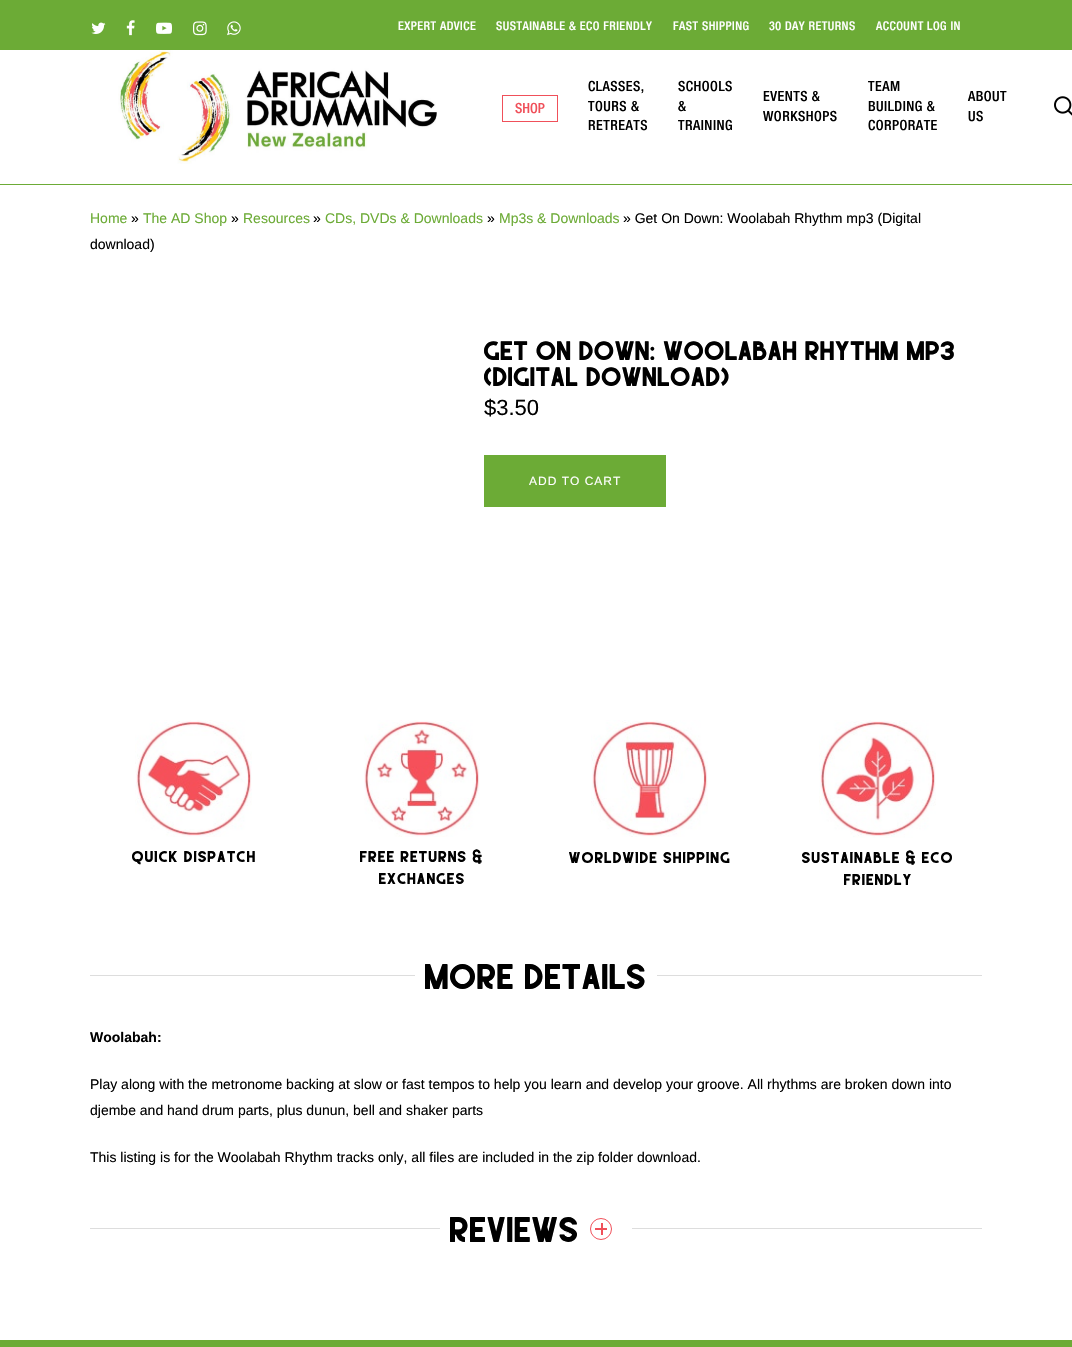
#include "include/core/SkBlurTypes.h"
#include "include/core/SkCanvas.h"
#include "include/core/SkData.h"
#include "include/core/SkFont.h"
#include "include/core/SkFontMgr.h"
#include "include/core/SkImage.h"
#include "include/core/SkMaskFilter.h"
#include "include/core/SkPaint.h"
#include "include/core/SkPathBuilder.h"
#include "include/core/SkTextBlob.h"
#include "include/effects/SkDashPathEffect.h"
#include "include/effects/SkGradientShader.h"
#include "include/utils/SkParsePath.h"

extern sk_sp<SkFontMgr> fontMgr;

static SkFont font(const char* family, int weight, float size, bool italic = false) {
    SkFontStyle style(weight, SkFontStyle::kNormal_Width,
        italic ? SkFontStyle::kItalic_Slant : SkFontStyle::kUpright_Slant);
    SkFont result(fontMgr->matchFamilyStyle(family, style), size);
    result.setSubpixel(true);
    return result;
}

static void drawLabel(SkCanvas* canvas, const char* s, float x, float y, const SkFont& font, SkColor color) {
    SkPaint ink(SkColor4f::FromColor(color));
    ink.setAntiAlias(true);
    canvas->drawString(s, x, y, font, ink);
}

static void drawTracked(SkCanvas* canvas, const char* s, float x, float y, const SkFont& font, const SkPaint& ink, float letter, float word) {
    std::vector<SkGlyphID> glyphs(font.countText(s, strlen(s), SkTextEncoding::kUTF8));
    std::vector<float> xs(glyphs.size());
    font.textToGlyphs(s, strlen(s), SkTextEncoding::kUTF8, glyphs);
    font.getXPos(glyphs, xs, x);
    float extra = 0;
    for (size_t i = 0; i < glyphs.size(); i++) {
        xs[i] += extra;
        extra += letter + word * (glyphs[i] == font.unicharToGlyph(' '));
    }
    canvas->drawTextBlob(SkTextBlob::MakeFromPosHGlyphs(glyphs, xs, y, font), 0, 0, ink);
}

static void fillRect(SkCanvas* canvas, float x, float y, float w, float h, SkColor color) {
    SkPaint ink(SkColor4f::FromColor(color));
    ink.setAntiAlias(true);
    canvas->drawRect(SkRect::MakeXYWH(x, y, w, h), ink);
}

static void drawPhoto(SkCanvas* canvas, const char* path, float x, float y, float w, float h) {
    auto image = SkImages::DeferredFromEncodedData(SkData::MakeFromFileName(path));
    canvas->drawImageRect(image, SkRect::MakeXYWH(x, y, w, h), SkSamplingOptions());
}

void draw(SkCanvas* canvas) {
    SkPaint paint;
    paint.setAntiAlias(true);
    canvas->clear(0xFF6CAB36);
    drawPhoto(canvas, "assets/img1.png", 91, 22, 15, 12);
    drawPhoto(canvas, "assets/img2.png", 126, 20, 9, 16);
    drawPhoto(canvas, "assets/img3.png", 156, 22, 16, 12);
    drawPhoto(canvas, "assets/img4.png", 193, 21, 14, 15);
    drawPhoto(canvas, "assets/img5.png", 227, 21, 14, 15);
    SkFont font1 = font("Helvetica Neue", 500, 12);
    paint.setColor(0xFFFFFFFF);
    drawTracked(canvas, "EXPERT ADVICE", 398, 30, font1, paint, 0.5f, 0);
    drawTracked(canvas, "SUSTAINABLE & ECO FRIENDLY", 496, 30, font1, paint, 0.5f, 0);
    drawTracked(canvas, "FAST SHIPPING", 673, 30, font1, paint, 0.5f, 0);
    drawTracked(canvas, "30 DAY RETURNS", 769, 30, font1, paint, 0.5f, 0);
    drawTracked(canvas, "ACCOUNT LOG IN", 876, 30, font1, paint, 0.5f, 0);
    fillRect(canvas, 0, 50, 1072, 134, 0xFFFFFFFF);
    drawPhoto(canvas, "assets/img6.png", 118, 50, 319, 114);
    paint.setStroke(true);
    paint.setStrokeWidth(1);
    paint.setColor(0xFFF0505A);
    canvas->drawRect(SkRect::MakeXYWH(502.5f, 95.5f, 55, 26), paint);
    SkFont font2 = font("Helvetica Neue", 500, 14);
    drawLabel(canvas, "SHOP", 515, 113, font2, 0xFFF0505A);
    paint.setStroke(false);
    paint.setColor(0xFF000000);
    drawTracked(canvas, "CLASSES,", 588, 91, font2, paint, 0.5f, 0);
    drawTracked(canvas, "TOURS &", 588, 111, font2, paint, 0.5f, 0);
    drawTracked(canvas, "RETREATS", 588, 130, font2, paint, 0.5f, 0);
    drawTracked(canvas, "SCHOOLS", 678, 91, font2, paint, 0.5f, 0);
    drawTracked(canvas, "&", 678, 111, font2, paint, 0.5f, 0);
    drawTracked(canvas, "TRAINING", 678, 130, font2, paint, 0.5f, 0);
    drawTracked(canvas, "EVENTS &", 763, 101, font2, paint, 0.5f, 0);
    drawTracked(canvas, "WORKSHOPS", 763, 121, font2, paint, 0.5f, 0);
    drawTracked(canvas, "TEAM", 868, 91, font2, paint, 0.5f, 0);
    drawTracked(canvas, "BUILDING &", 868, 111, font2, paint, 0.5f, 0);
    drawTracked(canvas, "CORPORATE", 868, 130, font2, paint, 0.5f, 0);
    drawTracked(canvas, "ABOUT", 968, 101, font2, paint, 0.5f, 0);
    drawTracked(canvas, "US", 968, 121, font2, paint, 0.5f, 0);
    drawPhoto(canvas, "assets/img7.png", 1054, 96, 18, 20);
    fillRect(canvas, 0, 185, 1072, 1155, 0xFFFFFFFF);
    SkFont font3 = font("Liberation Sans", 400, 14);
    drawLabel(canvas, "Home", 90, 223, font3, 0xFF6CAB36);
    drawLabel(canvas, "»", 131, 223, font3, 0xFF000000);
    drawLabel(canvas, "The AD Shop", 143, 223, font3, 0xFF6CAB36);
    drawLabel(canvas, "»", 231, 223, font3, 0xFF000000);
    drawLabel(canvas, "Resources", 243, 223, font3, 0xFF6CAB36);
    drawLabel(canvas, "»", 313, 223, font3, 0xFF000000);
    drawLabel(canvas, "CDs, DVDs & Downloads", 325, 223, font3, 0xFF6CAB36);
    drawLabel(canvas, "»", 487, 223, font3, 0xFF000000);
    drawLabel(canvas, "Mp3s & Downloads", 499, 223, font3, 0xFF6CAB36);
    drawLabel(canvas, "» Get On Down: Woolabah Rhythm mp3 (Digital", 623, 223, font3, 0xFF000000);
    drawLabel(canvas, "download)", 90, 249, font3, 0xFF000000);
    SkFont font4 = font("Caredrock", 400, 37.5f);
    drawLabel(canvas, "Get On Down: Woolabah Rhythm mp3", 484, 360, font4, 0xFF000000);
    drawLabel(canvas, "(Digital download)", 484, 386, font4, 0xFF000000);
    SkFont font5 = font("Liberation Sans", 400, 22);
    drawLabel(canvas, "$3.50", 484, 415, font5, 0xFF000000);
    fillRect(canvas, 484, 455, 182, 52, 0xFF6CAB36);
    SkFont font6 = font("Liberation Sans", 400, 12);
    paint.setColor(0xFFFFFFFF);
    drawTracked(canvas, "ADD TO CART", 529, 485, font6, paint, 1, 0);
    drawPhoto(canvas, "assets/img8.png", 135, 720, 117, 117);
    SkFont font7 = font("Caredrock", 400, 22);
    paint.setColor(0xFF000000);
    drawTracked(canvas, "QUICK DISPATCH", 132, 862, font7, paint, 0.9f, 0);
    drawPhoto(canvas, "assets/img9.png", 364, 720, 116, 117);
    drawTracked(canvas, "FREE RETURNS &", 360, 862, font7, paint, 0.9f, 0);
    drawTracked(canvas, "EXCHANGES", 379, 884, font7, paint, 0.9f, 0);
    drawPhoto(canvas, "assets/img10.png", 591, 720, 117, 117);
    drawTracked(canvas, "WORLDWIDE SHIPPING", 569, 863, font7, paint, 0.9f, 0);
    drawPhoto(canvas, "assets/img11.png", 819, 720, 117, 118);
    drawTracked(canvas, "SUSTAINABLE & ECO", 802, 863, font7, paint, 0.9f, 0);
    drawTracked(canvas, "FRIENDLY", 844, 885, font7, paint, 0.9f, 0);
    fillRect(canvas, 90, 975, 325, 1, 0xFFDDDDDD);
    SkFont font8 = font("Caredrock", 400, 50);
    drawLabel(canvas, "More Details", 425, 989, font8, 0xFF000000);
    fillRect(canvas, 657, 975, 325, 1, 0xFFDDDDDD);
    SkFont font9 = font("Liberation Sans", 700, 14);
    drawLabel(canvas, "Woolabah:", 90, 1042, font9, 0xFF000000);
    drawLabel(canvas, "Play along with the metronome backing at slow or fast tempos to help you learn and develop your groove. All rhythms are broken down into", 90, 1089, font3, 0xFF000000);
    drawLabel(canvas, "djembe and hand drum parts, plus dunun, bell and shaker parts", 90, 1115, font3, 0xFF000000);
    drawLabel(canvas, "This listing is for the Woolabah Rhythm tracks only, all files are included in the zip folder download.", 90, 1162, font3, 0xFF000000);
    fillRect(canvas, 90, 1228, 350, 1, 0xFFDDDDDD);
    drawLabel(canvas, "Reviews", 450, 1242, font8, 0xFF000000);
    paint.setStroke(true);
    paint.setColor(0xFFF0505A);
    canvas->drawCircle(601, 1229, 10.5f, paint);
    fillRect(canvas, 601, 1223, 2, 12, 0xFFF0505A);
    fillRect(canvas, 595, 1228, 12, 2, 0xFFF0505A);
    fillRect(canvas, 632, 1228, 350, 1, 0xFFDDDDDD);
}
